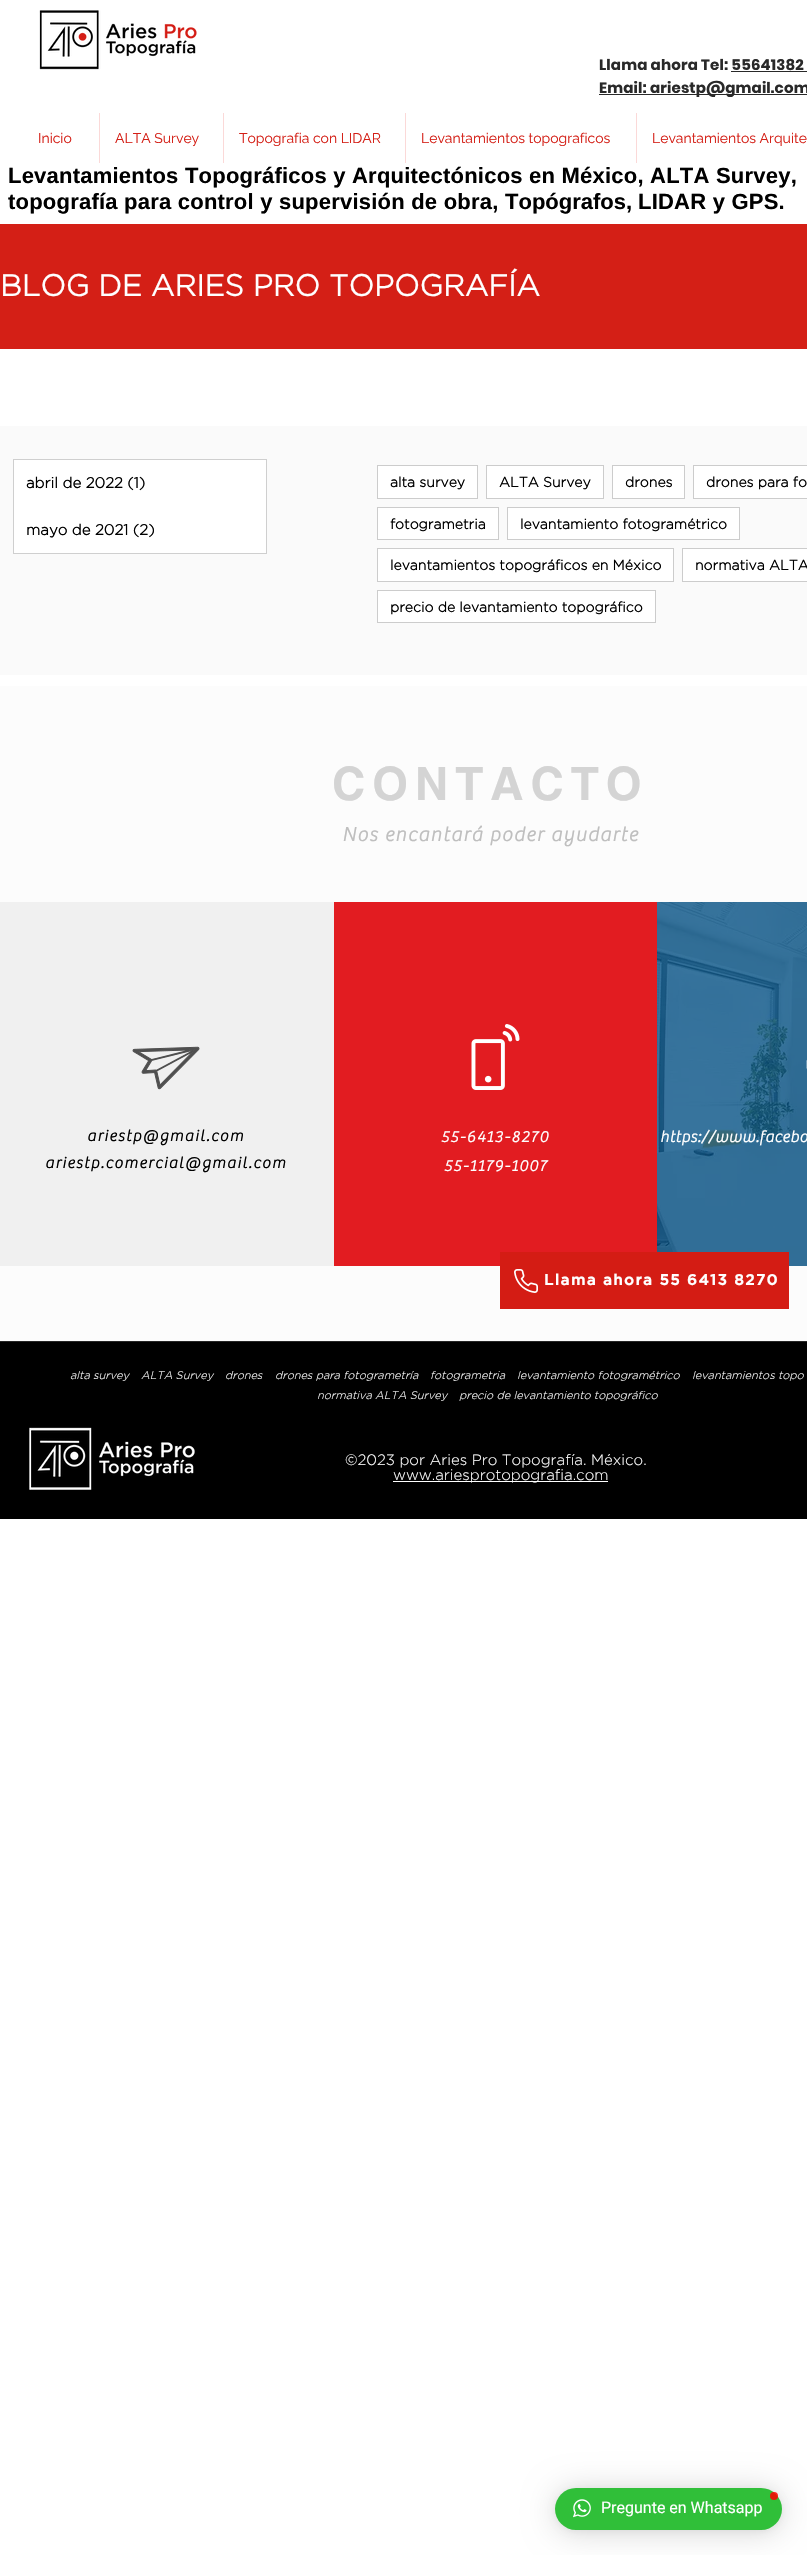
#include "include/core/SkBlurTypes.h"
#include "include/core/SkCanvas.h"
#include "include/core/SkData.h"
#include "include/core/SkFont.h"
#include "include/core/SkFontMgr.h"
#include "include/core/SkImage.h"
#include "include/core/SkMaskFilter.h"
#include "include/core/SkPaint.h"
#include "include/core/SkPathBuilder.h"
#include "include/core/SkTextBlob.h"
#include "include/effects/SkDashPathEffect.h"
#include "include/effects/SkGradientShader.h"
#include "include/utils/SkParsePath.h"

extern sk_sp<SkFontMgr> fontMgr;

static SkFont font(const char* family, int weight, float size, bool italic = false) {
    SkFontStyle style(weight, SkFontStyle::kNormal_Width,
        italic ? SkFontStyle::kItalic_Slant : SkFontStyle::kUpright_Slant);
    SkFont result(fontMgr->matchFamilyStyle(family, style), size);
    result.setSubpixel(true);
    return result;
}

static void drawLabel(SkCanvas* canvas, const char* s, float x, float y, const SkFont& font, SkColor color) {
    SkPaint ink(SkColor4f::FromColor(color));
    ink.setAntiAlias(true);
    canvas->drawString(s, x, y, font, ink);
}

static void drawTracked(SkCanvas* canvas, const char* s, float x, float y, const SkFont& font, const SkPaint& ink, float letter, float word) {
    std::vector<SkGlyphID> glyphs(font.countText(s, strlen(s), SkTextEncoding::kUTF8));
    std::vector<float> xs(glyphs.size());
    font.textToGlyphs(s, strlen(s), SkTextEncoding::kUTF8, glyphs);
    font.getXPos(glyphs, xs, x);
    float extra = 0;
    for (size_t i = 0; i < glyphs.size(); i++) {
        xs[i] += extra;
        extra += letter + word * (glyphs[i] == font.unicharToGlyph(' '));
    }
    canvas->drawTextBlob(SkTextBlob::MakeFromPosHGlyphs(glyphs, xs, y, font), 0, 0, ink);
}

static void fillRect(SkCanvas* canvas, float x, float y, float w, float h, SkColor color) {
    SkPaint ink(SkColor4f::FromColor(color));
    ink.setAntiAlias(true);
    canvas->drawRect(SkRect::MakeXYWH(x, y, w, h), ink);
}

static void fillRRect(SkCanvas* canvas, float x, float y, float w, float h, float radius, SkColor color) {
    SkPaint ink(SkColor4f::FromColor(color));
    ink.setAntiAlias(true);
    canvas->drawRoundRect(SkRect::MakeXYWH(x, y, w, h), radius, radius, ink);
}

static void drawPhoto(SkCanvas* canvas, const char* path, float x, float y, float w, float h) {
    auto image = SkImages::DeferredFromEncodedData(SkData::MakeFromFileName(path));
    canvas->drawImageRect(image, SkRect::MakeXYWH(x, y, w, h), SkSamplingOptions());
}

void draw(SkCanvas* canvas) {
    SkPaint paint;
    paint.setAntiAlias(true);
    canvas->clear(0xFFFFFFFF);
    drawPhoto(canvas, "assets/img1.png", 39, 10, 158, 60);
    SkFont font1 = font("Poppins", 700, 15);
    paint.setColor(0xFF292929);
    drawTracked(canvas, "Llama ahora Tel: 55641382", 599, 70, font1, paint, 0.15f, 0);
    fillRect(canvas, 731, 71, 76, 1, 0xFF292929);
    fillRect(canvas, 599, 94, 208, 1, 0xFF292929);
    drawTracked(canvas, "Email: ariestp@gmail.com", 599, 93, font1, paint, 0.15f, 0);
    SkFont font2 = font("Raleway", 400, 14);
    drawLabel(canvas, "Inicio", 38, 143, font2, 0xFFD41F16);
    fillRect(canvas, 99, 113, 1, 50, 0xFFFBD9D8);
    drawLabel(canvas, "ALTA Survey", 115, 143, font2, 0xFFD41F16);
    fillRect(canvas, 223, 113, 1, 50, 0xFFFBD9D8);
    drawLabel(canvas, "Topografia con LIDAR", 239, 143, font2, 0xFFD41F16);
    fillRect(canvas, 405, 113, 1, 50, 0xFFFBD9D8);
    drawLabel(canvas, "Levantamientos topograficos", 421, 143, font2, 0xFFD41F16);
    fillRect(canvas, 636, 113, 1, 50, 0xFFFBD9D8);
    drawLabel(canvas, "Levantamientos Arquite", 652, 143, font2, 0xFFD41F16);
    SkFont font3 = font("Liberation Sans", 700, 22);
    paint.setColor(0xFF000000);
    drawTracked(canvas, "Levantamientos Topográficos y Arquitectónicos en México, ALTA Survey,", 8, 183, font3, paint, 0.22f, 0);
    drawTracked(canvas, "topografía para control y supervisión de obra,", 8, 209, font3, paint, 0.22f, 0);
    drawLabel(canvas, "Topógrafos,", 505, 209, font3, 0xFF000000);
    drawTracked(canvas, "LIDAR y GPS.", 638, 209, font3, paint, 0.22f, 0);
    fillRect(canvas, 0, 224, 807, 125, 0xFFD41F16);
    SkFont font4 = font("Gotham", 700, 30);
    drawLabel(canvas, "BLOG DE ARIES PRO TOPOGRAFÍA", 0, 296, font4, 0xFFFFFFFF);
    fillRect(canvas, 0, 426, 807, 249, 0xFFFAFAFA);
    paint.setColor(0xFFFFFFFF);
    canvas->drawRect(SkRect::MakeXYWH(13.5f, 459.5f, 253, 94), paint);
    paint.setStroke(true);
    paint.setStrokeWidth(1);
    paint.setColor(0xFFCFCFCF);
    canvas->drawRect(SkRect::MakeXYWH(13.5f, 459.5f, 253, 94), paint);
    SkFont font5 = font("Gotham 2", 700, 15);
    drawLabel(canvas, "abril de 2022 (1)", 26, 488, font5, 0xFF000000);
    drawLabel(canvas, "mayo de 2021 (2)", 26, 535, font5, 0xFF000000);
    paint.setStroke(false);
    paint.setColor(0xFFFFFFFF);
    canvas->drawRect(SkRect::MakeXYWH(377.5f, 465.5f, 100, 33), paint);
    paint.setStroke(true);
    paint.setColor(0xFFCCCCCC);
    canvas->drawRect(SkRect::MakeXYWH(377.5f, 465.5f, 100, 33), paint);
    SkFont font6 = font("Gotham 2", 700, 14);
    drawLabel(canvas, "alta survey", 390, 487, font6, 0xFF000000);
    paint.setStroke(false);
    paint.setColor(0xFFFFFFFF);
    canvas->drawRect(SkRect::MakeXYWH(486.5f, 465.5f, 117, 33), paint);
    paint.setStroke(true);
    paint.setColor(0xFFCCCCCC);
    canvas->drawRect(SkRect::MakeXYWH(486.5f, 465.5f, 117, 33), paint);
    drawLabel(canvas, "ALTA Survey", 499, 487, font6, 0xFF000000);
    paint.setStroke(false);
    paint.setColor(0xFFFFFFFF);
    canvas->drawRect(SkRect::MakeXYWH(612.5f, 465.5f, 72, 33), paint);
    paint.setStroke(true);
    paint.setColor(0xFFCCCCCC);
    canvas->drawRect(SkRect::MakeXYWH(612.5f, 465.5f, 72, 33), paint);
    drawLabel(canvas, "drones", 625, 487, font6, 0xFF000000);
    paint.setStroke(false);
    paint.setColor(0xFFFFFFFF);
    canvas->drawRect(SkRect::MakeXYWH(693.5f, 465.5f, 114, 33), paint);
    paint.setStroke(true);
    paint.setColor(0xFFCCCCCC);
    canvas->drawRect(SkRect::MakeXYWH(693.5f, 465.5f, 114, 33), paint);
    drawLabel(canvas, "drones para fo", 706, 487, font6, 0xFF000000);
    paint.setStroke(false);
    paint.setColor(0xFFFFFFFF);
    canvas->drawRect(SkRect::MakeXYWH(377.5f, 507.5f, 121, 32), paint);
    paint.setStroke(true);
    paint.setColor(0xFFCCCCCC);
    canvas->drawRect(SkRect::MakeXYWH(377.5f, 507.5f, 121, 32), paint);
    drawLabel(canvas, "fotogrametria", 390, 529, font6, 0xFF000000);
    paint.setStroke(false);
    paint.setColor(0xFFFFFFFF);
    canvas->drawRect(SkRect::MakeXYWH(507.5f, 507.5f, 232, 32), paint);
    paint.setStroke(true);
    paint.setColor(0xFFCCCCCC);
    canvas->drawRect(SkRect::MakeXYWH(507.5f, 507.5f, 232, 32), paint);
    drawLabel(canvas, "levantamiento fotogramétrico", 520, 529, font6, 0xFF000000);
    paint.setStroke(false);
    paint.setColor(0xFFFFFFFF);
    canvas->drawRect(SkRect::MakeXYWH(377.5f, 548.5f, 296, 33), paint);
    paint.setStroke(true);
    paint.setColor(0xFFCCCCCC);
    canvas->drawRect(SkRect::MakeXYWH(377.5f, 548.5f, 296, 33), paint);
    drawLabel(canvas, "levantamientos topográficos en México", 390, 570, font6, 0xFF000000);
    paint.setStroke(false);
    paint.setColor(0xFFFFFFFF);
    canvas->drawRect(SkRect::MakeXYWH(682.5f, 548.5f, 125, 33), paint);
    paint.setStroke(true);
    paint.setColor(0xFFCCCCCC);
    canvas->drawRect(SkRect::MakeXYWH(682.5f, 548.5f, 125, 33), paint);
    drawLabel(canvas, "normativa ALTA", 695, 570, font6, 0xFF000000);
    paint.setStroke(false);
    paint.setColor(0xFFFFFFFF);
    canvas->drawRect(SkRect::MakeXYWH(377.5f, 590.5f, 278, 32), paint);
    paint.setStroke(true);
    paint.setColor(0xFFCCCCCC);
    canvas->drawRect(SkRect::MakeXYWH(377.5f, 590.5f, 278, 32), paint);
    drawLabel(canvas, "precio de levantamiento topográfico", 390, 612, font6, 0xFF000000);
    fillRect(canvas, 0, 686, 807, 655, 0xFFFCFCFC);
    SkFont font7 = font("helvetica", 700, 46);
    paint.setStroke(false);
    paint.setColor(0xFFD4D4D4);
    drawTracked(canvas, "CONTACTO", 332, 800, font7, paint, 7, 0);
    SkFont font8 = font("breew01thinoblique", 700, 20);
    paint.setColor(0xFFBFBFBF);
    drawTracked(canvas, "Nos encantará poder ayudarte", 342, 841, font8, paint, 1.6f, 0);
    fillRect(canvas, 0, 902, 334, 364, 0xFFF0F0F0);
    drawPhoto(canvas, "assets/img2.png", 132, 1046, 68, 44);
    SkFont font9 = font("breew01thinoblique", 700, 16);
    paint.setColor(0xFF000000);
    drawTracked(canvas, "ariestp@gmail.com", 87, 1141, font9, paint, 1.6f, 0);
    drawTracked(canvas, "ariestp.comercial@gmail.com", 45, 1168, font9, paint, 1.6f, 0);
    fillRect(canvas, 334, 902, 323, 364, 0xFFE21C21);
    drawPhoto(canvas, "assets/img3.png", 471, 1024, 49, 66);
    paint.setColor(0xFFFFFFFF);
    drawTracked(canvas, "55-6413-8270", 441, 1142, font9, paint, 1.6f, 0);
    drawTracked(canvas, "55-1179-1007", 444, 1171, font9, paint, 1.6f, 0);
    fillRect(canvas, 657, 902, 150, 364, 0xFF045184);
    drawPhoto(canvas, "assets/img4.png", 657, 902, 150, 364);
    drawPhoto(canvas, "assets/img5.png", 806, 1060, 1, 9);
    drawTracked(canvas, "https://www.facebo", 660, 1142, font9, paint, 0.75f, 0);
    fillRect(canvas, 500, 1252, 289, 57, 0xFFD41C14);
    drawPhoto(canvas, "assets/img6.png", 514, 1269, 24, 24);
    SkFont font10 = font("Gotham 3", 700, 15);
    drawTracked(canvas, "Llama ahora 55 6413 8270", 544, 1285, font10, paint, 1.5f, 0);
    fillRect(canvas, 0, 1342, 807, 177, 0xFF000000);
    fillRect(canvas, 0, 1341, 807, 1, 0xFF262626);
    SkFont font11 = font("Gotham", 300, 11, true);
    drawLabel(canvas, "alta survey", 70, 1379, font11, 0xFFFFFFFF);
    drawLabel(canvas, "ALTA Survey", 141, 1379, font11, 0xFFFFFFFF);
    drawLabel(canvas, "drones", 225, 1379, font11, 0xFFFFFFFF);
    drawLabel(canvas, "drones para fotogrametría", 275, 1379, font11, 0xFFFFFFFF);
    drawLabel(canvas, "fotogrametria", 430, 1379, font11, 0xFFFFFFFF);
    drawLabel(canvas, "levantamiento fotogramétrico", 517, 1379, font11, 0xFFFFFFFF);
    drawLabel(canvas, "levantamientos topo", 692, 1379, font11, 0xFFFFFFFF);
    drawLabel(canvas, "normativa ALTA Survey", 317, 1399, font11, 0xFFFFFFFF);
    drawLabel(canvas, "precio de levantamiento topográfico", 459, 1399, font11, 0xFFFFFFFF);
    drawPhoto(canvas, "assets/img7.png", 29, 1427, 166, 63);
    SkFont font12 = font("Gotham", 300, 15);
    drawLabel(canvas, "©2023 por Aries Pro Topografía. México.", 345, 1465, font12, 0xFFFFFFFF);
    fillRect(canvas, 393, 1481, 215, 1, 0xFFFFFFFF);
    drawLabel(canvas, "www.ariesprotopografia.com", 393, 1480, font12, 0xFFFFFFFF);
    paint.setColor(0x29000000);
    paint.setMaskFilter(SkMaskFilter::MakeBlur(kNormal_SkBlurStyle, 16));
    canvas->drawRoundRect(SkRect::MakeXYWH(555, 2490, 227, 42), 21, 21, paint);
    paint.setMaskFilter(nullptr);
    paint.setColor(0x0F000000);
    paint.setMaskFilter(SkMaskFilter::MakeBlur(kNormal_SkBlurStyle, 3));
    canvas->drawRoundRect(SkRect::MakeXYWH(555, 2489, 227, 42), 21, 21, paint);
    paint.setMaskFilter(nullptr);
    fillRRect(canvas, 555, 2488, 227, 42, 21, 0xFF30BF39);
    paint.setColor(0xD9FF0000);
    canvas->drawCircle(774, 2496, 4, paint);
    drawPhoto(canvas, "assets/img8.png", 573, 2499, 18, 19);
    SkFont font13 = font("Roboto", 400, 16);
    drawLabel(canvas, "Pregunte en Whatsapp", 601, 2513, font13, 0xFFFFFFFF);
}
